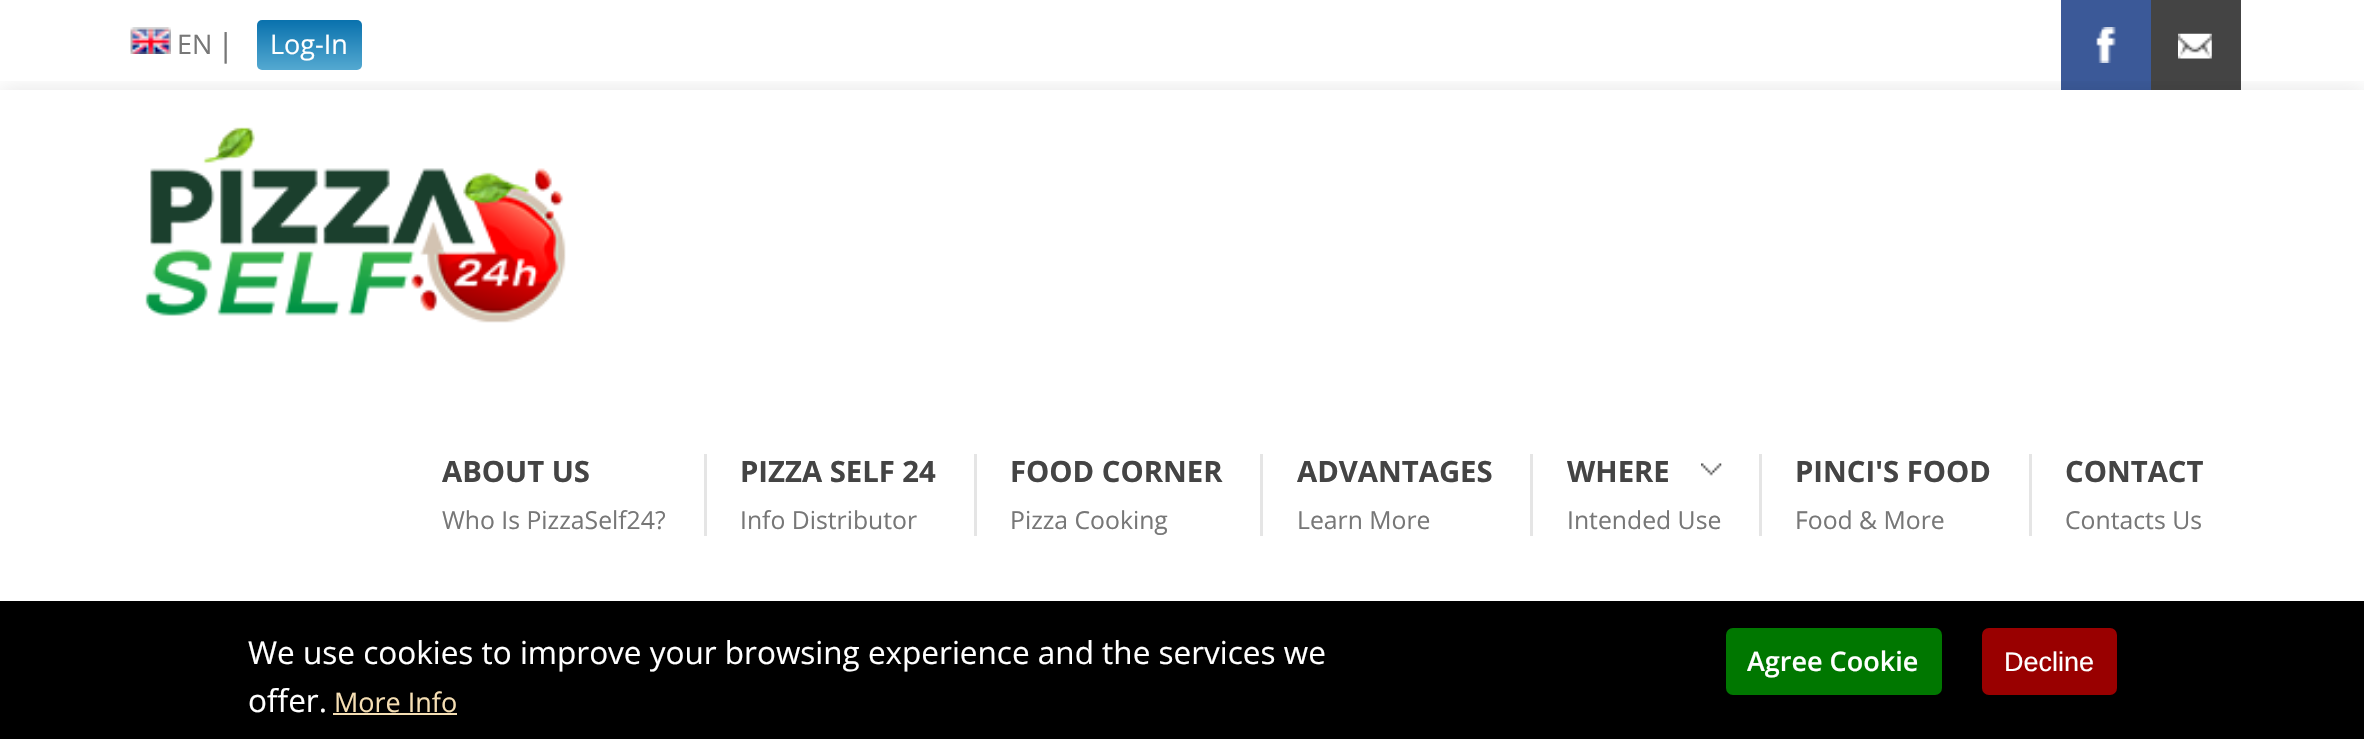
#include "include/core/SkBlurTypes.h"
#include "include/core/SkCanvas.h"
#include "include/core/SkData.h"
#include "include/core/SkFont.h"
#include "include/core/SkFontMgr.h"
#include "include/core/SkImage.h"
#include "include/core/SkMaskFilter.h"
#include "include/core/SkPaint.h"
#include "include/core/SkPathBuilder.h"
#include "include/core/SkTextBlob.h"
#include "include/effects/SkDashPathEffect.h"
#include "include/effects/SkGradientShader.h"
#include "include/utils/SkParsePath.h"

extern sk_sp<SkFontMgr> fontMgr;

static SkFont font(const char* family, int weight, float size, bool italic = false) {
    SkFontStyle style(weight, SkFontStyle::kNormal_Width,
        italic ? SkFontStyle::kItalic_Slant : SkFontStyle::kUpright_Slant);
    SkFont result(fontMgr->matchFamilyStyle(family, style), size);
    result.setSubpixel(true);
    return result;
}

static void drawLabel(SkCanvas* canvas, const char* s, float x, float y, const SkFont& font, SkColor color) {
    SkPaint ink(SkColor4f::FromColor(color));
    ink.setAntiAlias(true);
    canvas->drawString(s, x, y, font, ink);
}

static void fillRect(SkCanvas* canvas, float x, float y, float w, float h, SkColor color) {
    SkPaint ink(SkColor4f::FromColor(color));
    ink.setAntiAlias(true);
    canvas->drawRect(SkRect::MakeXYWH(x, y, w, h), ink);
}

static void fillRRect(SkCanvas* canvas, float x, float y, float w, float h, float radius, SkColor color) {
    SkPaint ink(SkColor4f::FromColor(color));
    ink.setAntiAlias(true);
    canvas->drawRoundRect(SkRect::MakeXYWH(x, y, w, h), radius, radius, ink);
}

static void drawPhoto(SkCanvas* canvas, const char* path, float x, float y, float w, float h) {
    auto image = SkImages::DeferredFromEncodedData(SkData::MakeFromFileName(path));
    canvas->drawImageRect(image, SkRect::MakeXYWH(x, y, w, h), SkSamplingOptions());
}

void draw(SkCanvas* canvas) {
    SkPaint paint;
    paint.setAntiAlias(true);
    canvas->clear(0xFFFFFFFF);
    drawPhoto(canvas, "assets/img1.png", 130, 27, 41, 27);
    SkFont font1 = font("Open Sans", 400, 27);
    drawLabel(canvas, "EN", 177, 54, font1, 0xFF777777);
    SkFont font2 = font("Open Sans", 400, 31.5f);
    drawLabel(canvas, "|", 217, 56, font2, 0xFF777777);
    {
        const SkColor colors[] = {0xFF0971AD, 0xFF54A9D1};
        const float stops[] = {0, 1};
        const SkPoint ends[] = {{309, 20}, {309, 70}};
        paint.setShader(SkGradientShader::MakeLinear(ends, colors, stops, 2, SkTileMode::kClamp));
        paint.setAlpha(255);
    }
    canvas->drawRoundRect(SkRect::MakeXYWH(257, 20, 105, 50), 5, 5, paint);
    drawLabel(canvas, "Log-In", 270, 54, font1, 0xFFFFFFFF);
    fillRect(canvas, 2061, 0, 90, 90, 0xFF3B5998);
    drawPhoto(canvas, "assets/img2.png", 2096, 27, 20, 36);
    fillRect(canvas, 2151, 0, 90, 90, 0xFF444444);
    drawPhoto(canvas, "assets/img3.png", 2178, 33, 34, 26);
    canvas->save();
    canvas->clipRect(SkRect::MakeXYWH(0, 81, 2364, 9));
    paint.setShader(nullptr);
    paint.setColor(0x1A000000);
    paint.setMaskFilter(SkMaskFilter::MakeBlur(kNormal_SkBlurStyle, 11));
    canvas->drawRect(SkRect::MakeXYWH(0, 90, 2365, 540), paint);
    paint.setMaskFilter(nullptr);
    canvas->restore();
    drawPhoto(canvas, "assets/img4.png", 145, 127, 421, 196);
    SkFont font3 = font("Open Sans", 700, 29.25f);
    drawLabel(canvas, "ABOUT US", 442, 482, font3, 0xFF444444);
    SkFont font4 = font("Open Sans", 400, 24.75f);
    drawLabel(canvas, "Who Is PizzaSelf24?", 442, 529, font4, 0xFF777777);
    fillRect(canvas, 704, 454, 3, 82, 0xFFE5E5E5);
    drawLabel(canvas, "PIZZA SELF 24", 740, 482, font3, 0xFF444444);
    drawLabel(canvas, "Info Distributor", 740, 529, font4, 0xFF777777);
    fillRect(canvas, 974, 454, 3, 82, 0xFFE5E5E5);
    drawLabel(canvas, "FOOD CORNER", 1010, 482, font3, 0xFF444444);
    drawLabel(canvas, "Pizza Cooking", 1010, 529, font4, 0xFF777777);
    fillRect(canvas, 1260, 454, 3, 82, 0xFFE5E5E5);
    drawLabel(canvas, "ADVANTAGES", 1297, 482, font3, 0xFF444444);
    drawLabel(canvas, "Learn More", 1297, 529, font4, 0xFF777777);
    fillRect(canvas, 1530, 454, 3, 82, 0xFFE5E5E5);
    drawPhoto(canvas, "assets/img5.png", 1701, 463, 21, 13);
    drawLabel(canvas, "WHERE", 1567, 482, font3, 0xFF444444);
    drawLabel(canvas, "Intended Use", 1567, 529, font4, 0xFF777777);
    fillRect(canvas, 1759, 454, 3, 82, 0xFFE5E5E5);
    drawLabel(canvas, "PINCI'S FOOD", 1795, 482, font3, 0xFF444444);
    drawLabel(canvas, "Food & More", 1795, 529, font4, 0xFF777777);
    fillRect(canvas, 2029, 454, 3, 82, 0xFFE5E5E5);
    drawLabel(canvas, "CONTACT", 2065, 482, font3, 0xFF444444);
    drawLabel(canvas, "Contacts Us", 2065, 529, font4, 0xFF777777);
    fillRect(canvas, 0, 601, 2364, 138, 0xFF000000);
    drawLabel(canvas, "We use cookies to improve your browsing experience and the services we", 248, 664, font2, 0xFFFFFFFF);
    drawLabel(canvas, "offer.", 248, 712, font2, 0xFFFFFFFF);
    drawLabel(canvas, "More Info", 334, 712, font1, 0xFFF5DEB3);
    fillRect(canvas, 333, 713, 124, 2, 0xFFF5DEB3);
    fillRRect(canvas, 1726, 628, 216, 67, 7, 0xFF007700);
    SkFont font5 = font("Open Sans", 600, 27);
    drawLabel(canvas, "Agree Cookie", 1747, 671, font5, 0xFFFFFFFF);
    fillRRect(canvas, 1982, 628, 135, 67, 7, 0xFF990000);
    SkFont font6 = font("Liberation Sans", 400, 27);
    drawLabel(canvas, "Decline", 2004, 671, font6, 0xFFFFFFFF);
}
